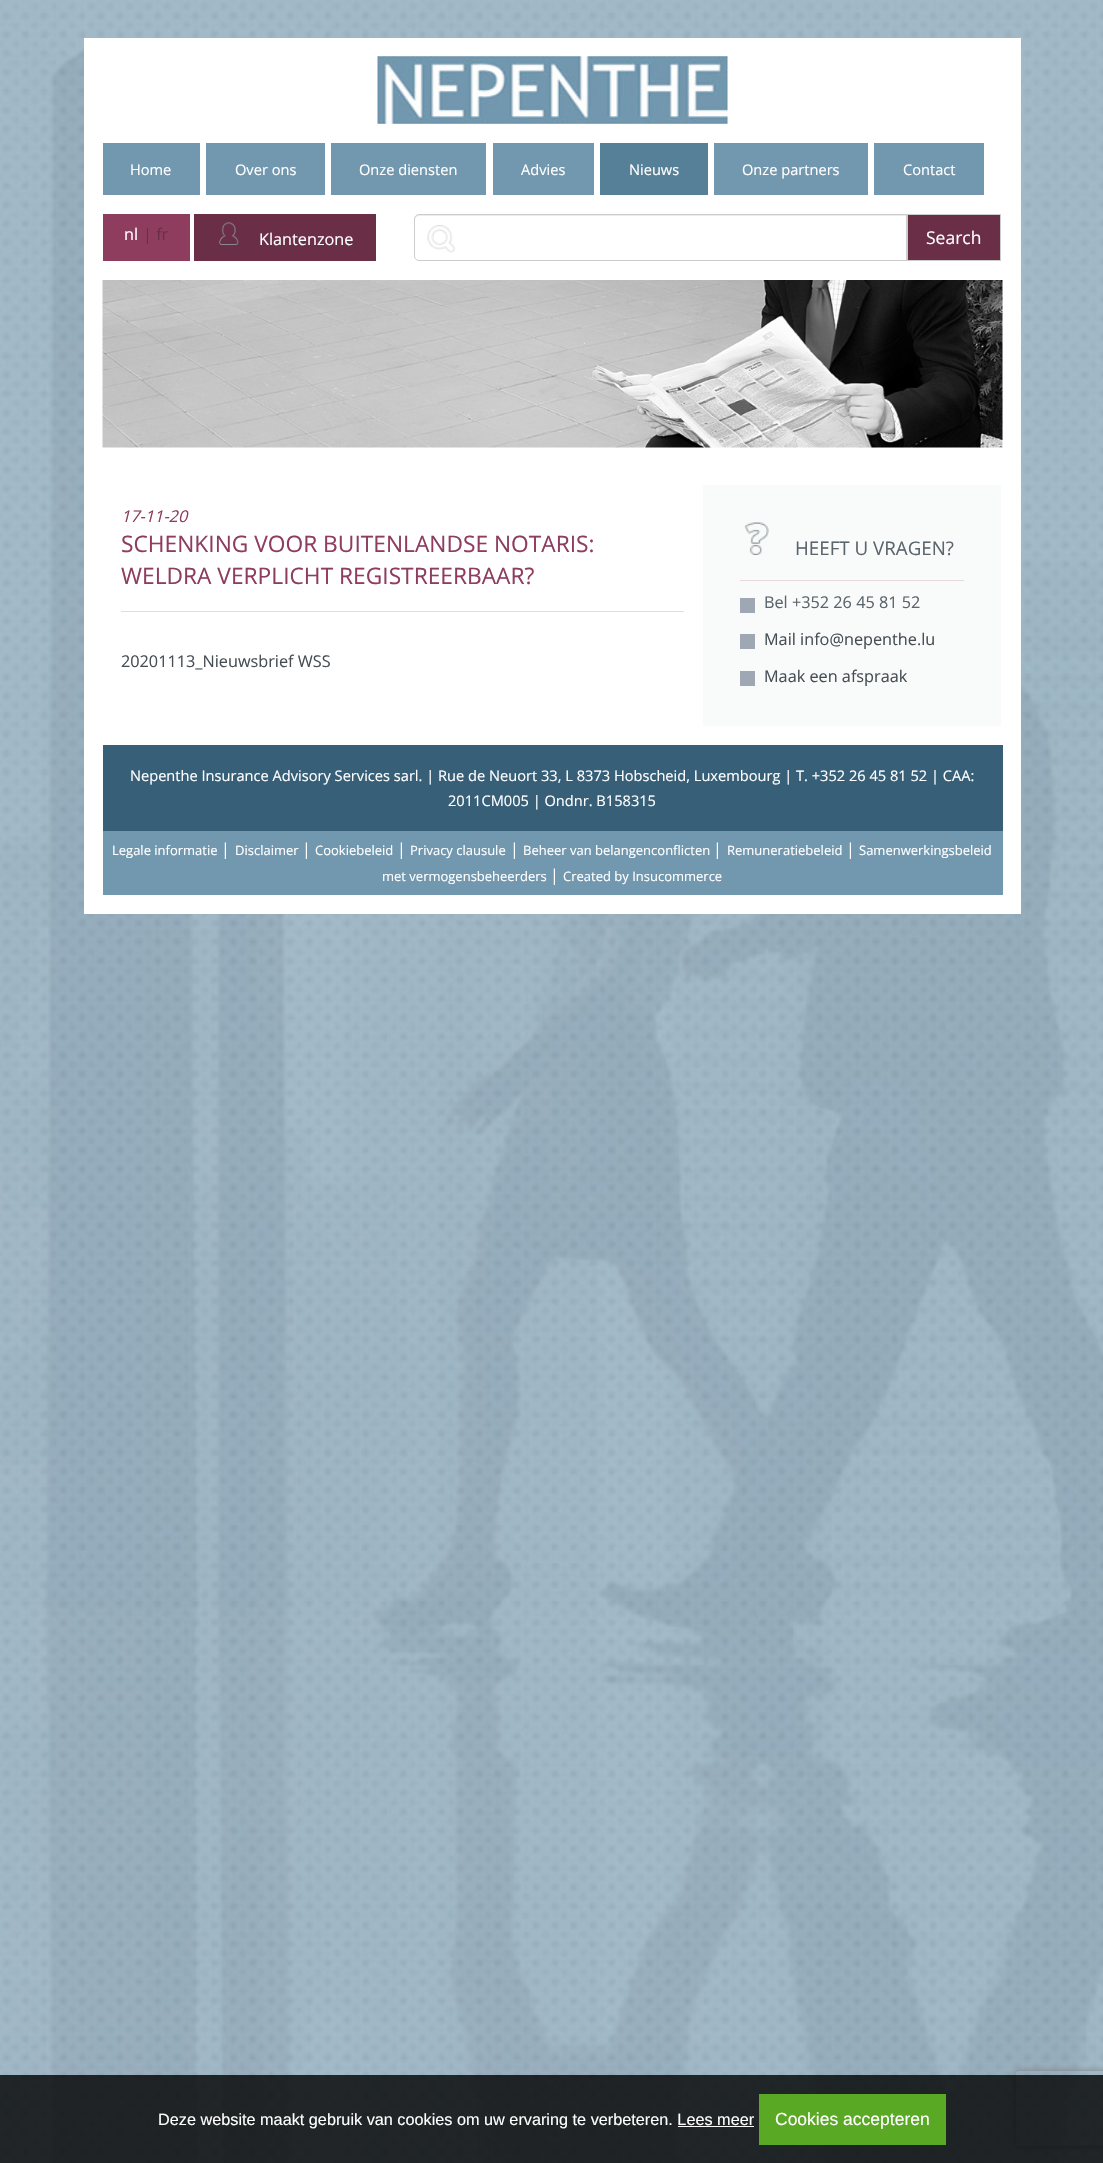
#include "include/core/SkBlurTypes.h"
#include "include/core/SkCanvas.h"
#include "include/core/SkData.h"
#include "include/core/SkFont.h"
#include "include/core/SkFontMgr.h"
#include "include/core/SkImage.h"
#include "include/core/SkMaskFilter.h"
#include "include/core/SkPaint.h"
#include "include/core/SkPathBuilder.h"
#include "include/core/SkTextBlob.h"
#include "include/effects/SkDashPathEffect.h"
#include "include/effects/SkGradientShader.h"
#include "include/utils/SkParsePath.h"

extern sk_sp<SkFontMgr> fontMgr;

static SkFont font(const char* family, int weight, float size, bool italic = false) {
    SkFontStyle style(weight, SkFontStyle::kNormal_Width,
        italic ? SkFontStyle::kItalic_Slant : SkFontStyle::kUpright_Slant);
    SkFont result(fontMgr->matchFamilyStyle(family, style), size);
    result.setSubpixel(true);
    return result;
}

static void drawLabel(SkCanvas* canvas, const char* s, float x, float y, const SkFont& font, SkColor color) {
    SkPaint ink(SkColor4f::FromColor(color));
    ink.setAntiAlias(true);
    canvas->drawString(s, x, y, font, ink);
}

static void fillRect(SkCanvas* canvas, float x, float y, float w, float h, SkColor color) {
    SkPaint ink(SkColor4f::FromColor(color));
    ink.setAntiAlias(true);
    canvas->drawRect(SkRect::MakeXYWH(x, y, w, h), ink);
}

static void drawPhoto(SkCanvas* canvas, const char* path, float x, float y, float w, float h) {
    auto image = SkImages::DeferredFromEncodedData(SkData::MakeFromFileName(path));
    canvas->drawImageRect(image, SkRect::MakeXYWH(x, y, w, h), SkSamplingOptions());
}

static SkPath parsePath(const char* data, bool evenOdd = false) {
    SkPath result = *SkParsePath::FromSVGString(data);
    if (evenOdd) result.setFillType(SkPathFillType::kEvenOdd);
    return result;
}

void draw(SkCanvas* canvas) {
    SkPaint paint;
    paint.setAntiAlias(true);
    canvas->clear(0xFFFFFFFF);
    drawPhoto(canvas, "assets/img1.png", 0, 0, 1103, 2163);
    fillRect(canvas, 84, 38, 937, 876, 0xFFFFFFFF);
    drawPhoto(canvas, "assets/img2.png", 377, 56, 351, 68);
    fillRect(canvas, 103, 143, 97, 52, 0xFF7298AF);
    SkFont font1 = font("Open Sans", 400, 14.62f);
    drawLabel(canvas, "Home", 130, 175, font1, 0xFFFFFFFF);
    fillRect(canvas, 206, 143, 119, 52, 0xFF7298AF);
    drawLabel(canvas, "Over ons", 235, 175, font1, 0xFFFFFFFF);
    fillRect(canvas, 331, 143, 155, 52, 0xFF7298AF);
    drawLabel(canvas, "Onze diensten", 359, 175, font1, 0xFFFFFFFF);
    fillRect(canvas, 493, 143, 101, 52, 0xFF7298AF);
    drawLabel(canvas, "Advies", 521, 175, font1, 0xFFFFFFFF);
    fillRect(canvas, 600, 143, 108, 52, 0xFF567F98);
    drawLabel(canvas, "Nieuws", 629, 175, font1, 0xFFFFFFFF);
    fillRect(canvas, 714, 143, 154, 52, 0xFF7298AF);
    drawLabel(canvas, "Onze partners", 742, 175, font1, 0xFFFFFFFF);
    fillRect(canvas, 874, 143, 110, 52, 0xFF7298AF);
    drawLabel(canvas, "Contact", 903, 175, font1, 0xFFFFFFFF);
    fillRect(canvas, 103, 214, 87, 47, 0xFF8E3D5E);
    SkFont font2 = font("Open Sans", 400, 16.25f);
    drawLabel(canvas, "nl", 124, 240, font2, 0xFFFFFFFF);
    drawLabel(canvas, "| fr", 143, 240, font2, 0xFF6A2E46);
    fillRect(canvas, 194, 214, 182, 47, 0xFF6A2E46);
    drawPhoto(canvas, "assets/img3.png", 219, 222, 20, 23);
    drawLabel(canvas, "Klantenzone", 259, 245, font2, 0xFFFFFFFF);
    drawPhoto(canvas, "assets/img4.png", 427, 225, 28, 28);
    paint.setColor(0xFFECECEC);
    canvas->drawPath(parsePath("M419 216H906V215H419C416 215 415 217 415 220C415 218 417 216 419 216Z"), paint);
    fillRect(canvas, 908, 215, 92, 45, 0xFF6A2E46);
    paint.setStroke(true);
    paint.setStrokeWidth(1);
    paint.setColor(0xFFCCCCCC);
    canvas->drawRect(SkRect::MakeXYWH(906.5f, 214.5f, 94, 46), paint);
    canvas->drawPath(parsePath("M419 214.5H907.5V260.5H419C416.5 260.5 414.5 258.5 414.5 256V219C414.5 216.5 416.5 214.5 419 214.5Z"), paint);
    SkFont font3 = font("Open Sans", 400, 17.5f);
    drawLabel(canvas, "Search", 926, 244, font3, 0xFFFFFFFF);
    drawPhoto(canvas, "assets/img5.png", 102, 280, 901, 168);
    SkFont font4 = font("Open Sans", 400, 16.25f, true);
    drawLabel(canvas, "17-11-20", 121, 522, font4, 0xFF8E3D5E);
    fillRect(canvas, 121, 611, 563, 1, 0xFFE8D9E0);
    SkFont font5 = font("Open Sans", 400, 22.75f);
    drawLabel(canvas, "SCHENKING VOOR BUITENLANDSE NOTARIS:", 121, 552, font5, 0xFF8E3D5E);
    drawLabel(canvas, "WELDRA VERPLICHT REGISTREERBAAR?", 121, 584, font5, 0xFF8E3D5E);
    drawLabel(canvas, "20201113_Nieuwsbrief WSS", 121, 667, font2, 0xFF464E53);
    fillRect(canvas, 703, 485, 298, 241, 0xFFF9FAFA);
    fillRect(canvas, 740, 580, 224, 1, 0xFFE8D9E0);
    drawPhoto(canvas, "assets/img6.png", 744, 522, 25, 33);
    SkFont font6 = font("Open Sans", 400, 18.75f);
    drawLabel(canvas, "HEEFT U VRAGEN?", 795, 555, font6, 0xFF5B656C);
    fillRect(canvas, 740, 598, 15, 15, 0xFF9FA6B4);
    drawLabel(canvas, "Bel +352 26 45 81 52", 764, 608, font2, 0xFF5B656C);
    fillRect(canvas, 740, 634, 15, 15, 0xFF9FA6B4);
    drawLabel(canvas, "Mail info@nepenthe.lu", 764, 645, font2, 0xFF464E53);
    fillRect(canvas, 740, 671, 15, 15, 0xFF9FA6B4);
    drawLabel(canvas, "Maak een afspraak", 764, 682, font2, 0xFF464E53);
    fillRect(canvas, 103, 745, 900, 86, 0xFF375F78);
    drawLabel(canvas, "Nepenthe Insurance Advisory Services sarl. | Rue de Neuort 33, L 8373 Hobscheid, Luxembourg | T. +352 26 45 81 52 | CAA:", 130, 781, font1, 0xFFFFFFFF);
    drawLabel(canvas, "2011CM005 | Ondnr. B158315", 448, 806, font1, 0xFFFFFFFF);
    fillRect(canvas, 103, 831, 900, 64, 0xFF7298AF);
    SkFont font7 = font("Open Sans", 400, 13);
    drawLabel(canvas, "Legale informatie", 112, 855, font7, 0xFFFFFFFF);
    drawLabel(canvas, "|", 221, 855, font2, 0xFFFFFFFF);
    drawLabel(canvas, "Disclaimer", 235, 855, font7, 0xFFFFFFFF);
    drawLabel(canvas, "|", 302, 855, font2, 0xFFFFFFFF);
    drawLabel(canvas, "Cookiebeleid", 315, 855, font7, 0xFFFFFFFF);
    drawLabel(canvas, "|", 397, 855, font2, 0xFFFFFFFF);
    drawLabel(canvas, "Privacy clausule", 410, 855, font7, 0xFFFFFFFF);
    drawLabel(canvas, "|", 510, 855, font2, 0xFFFFFFFF);
    drawLabel(canvas, "Beheer van belangenconflicten", 523, 855, font7, 0xFFFFFFFF);
    drawLabel(canvas, "|", 713, 855, font2, 0xFFFFFFFF);
    drawLabel(canvas, "Remuneratiebeleid", 727, 855, font7, 0xFFFFFFFF);
    drawLabel(canvas, "|", 846, 855, font2, 0xFFFFFFFF);
    drawLabel(canvas, "Samenwerkingsbeleid", 859, 855, font7, 0xFFFFFFFF);
    drawLabel(canvas, "met vermogensbeheerders", 382, 881, font7, 0xFFFFFFFF);
    drawLabel(canvas, "|", 550, 881, font2, 0xFFFFFFFF);
    drawLabel(canvas, "Created by Insucommerce", 563, 881, font7, 0xFFFFFFFF);
    canvas->save();
    canvas->clipPath(parsePath("M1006 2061H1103V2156H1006ZM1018.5 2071H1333.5C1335 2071 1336 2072 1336 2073.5V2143.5C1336 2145 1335 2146 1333.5 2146H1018.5C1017 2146 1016 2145 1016 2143.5V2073.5C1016 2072 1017 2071 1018.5 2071Z", true), true);
    paint.setStroke(false);
    paint.setColor(0xFF808080);
    paint.setMaskFilter(SkMaskFilter::MakeBlur(kNormal_SkBlurStyle, 3));
    canvas->drawRoundRect(SkRect::MakeXYWH(1016, 2071, 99, 75), 2.5f, 2.5f, paint);
    paint.setMaskFilter(nullptr);
    canvas->restore();
    fillRect(canvas, 0, 2075, 1103, 88, 0xCC000000);
    SkFont font8 = font("Liberation Sans", 400, 16.25f);
    drawLabel(canvas, "Deze website maakt gebruik van cookies om uw ervaring te verbeteren. Lees meer", 158, 2125, font8, 0xFFFFFFFF);
    fillRect(canvas, 759, 2094, 187, 51, 0xFF59A924);
    SkFont font9 = font("Liberation Sans", 400, 17.5f);
    drawLabel(canvas, "Cookies accepteren", 775, 2125, font9, 0xFFFFFFFF);
    fillRect(canvas, 678, 2126, 76, 1, 0xFFFFFFFF);
}
